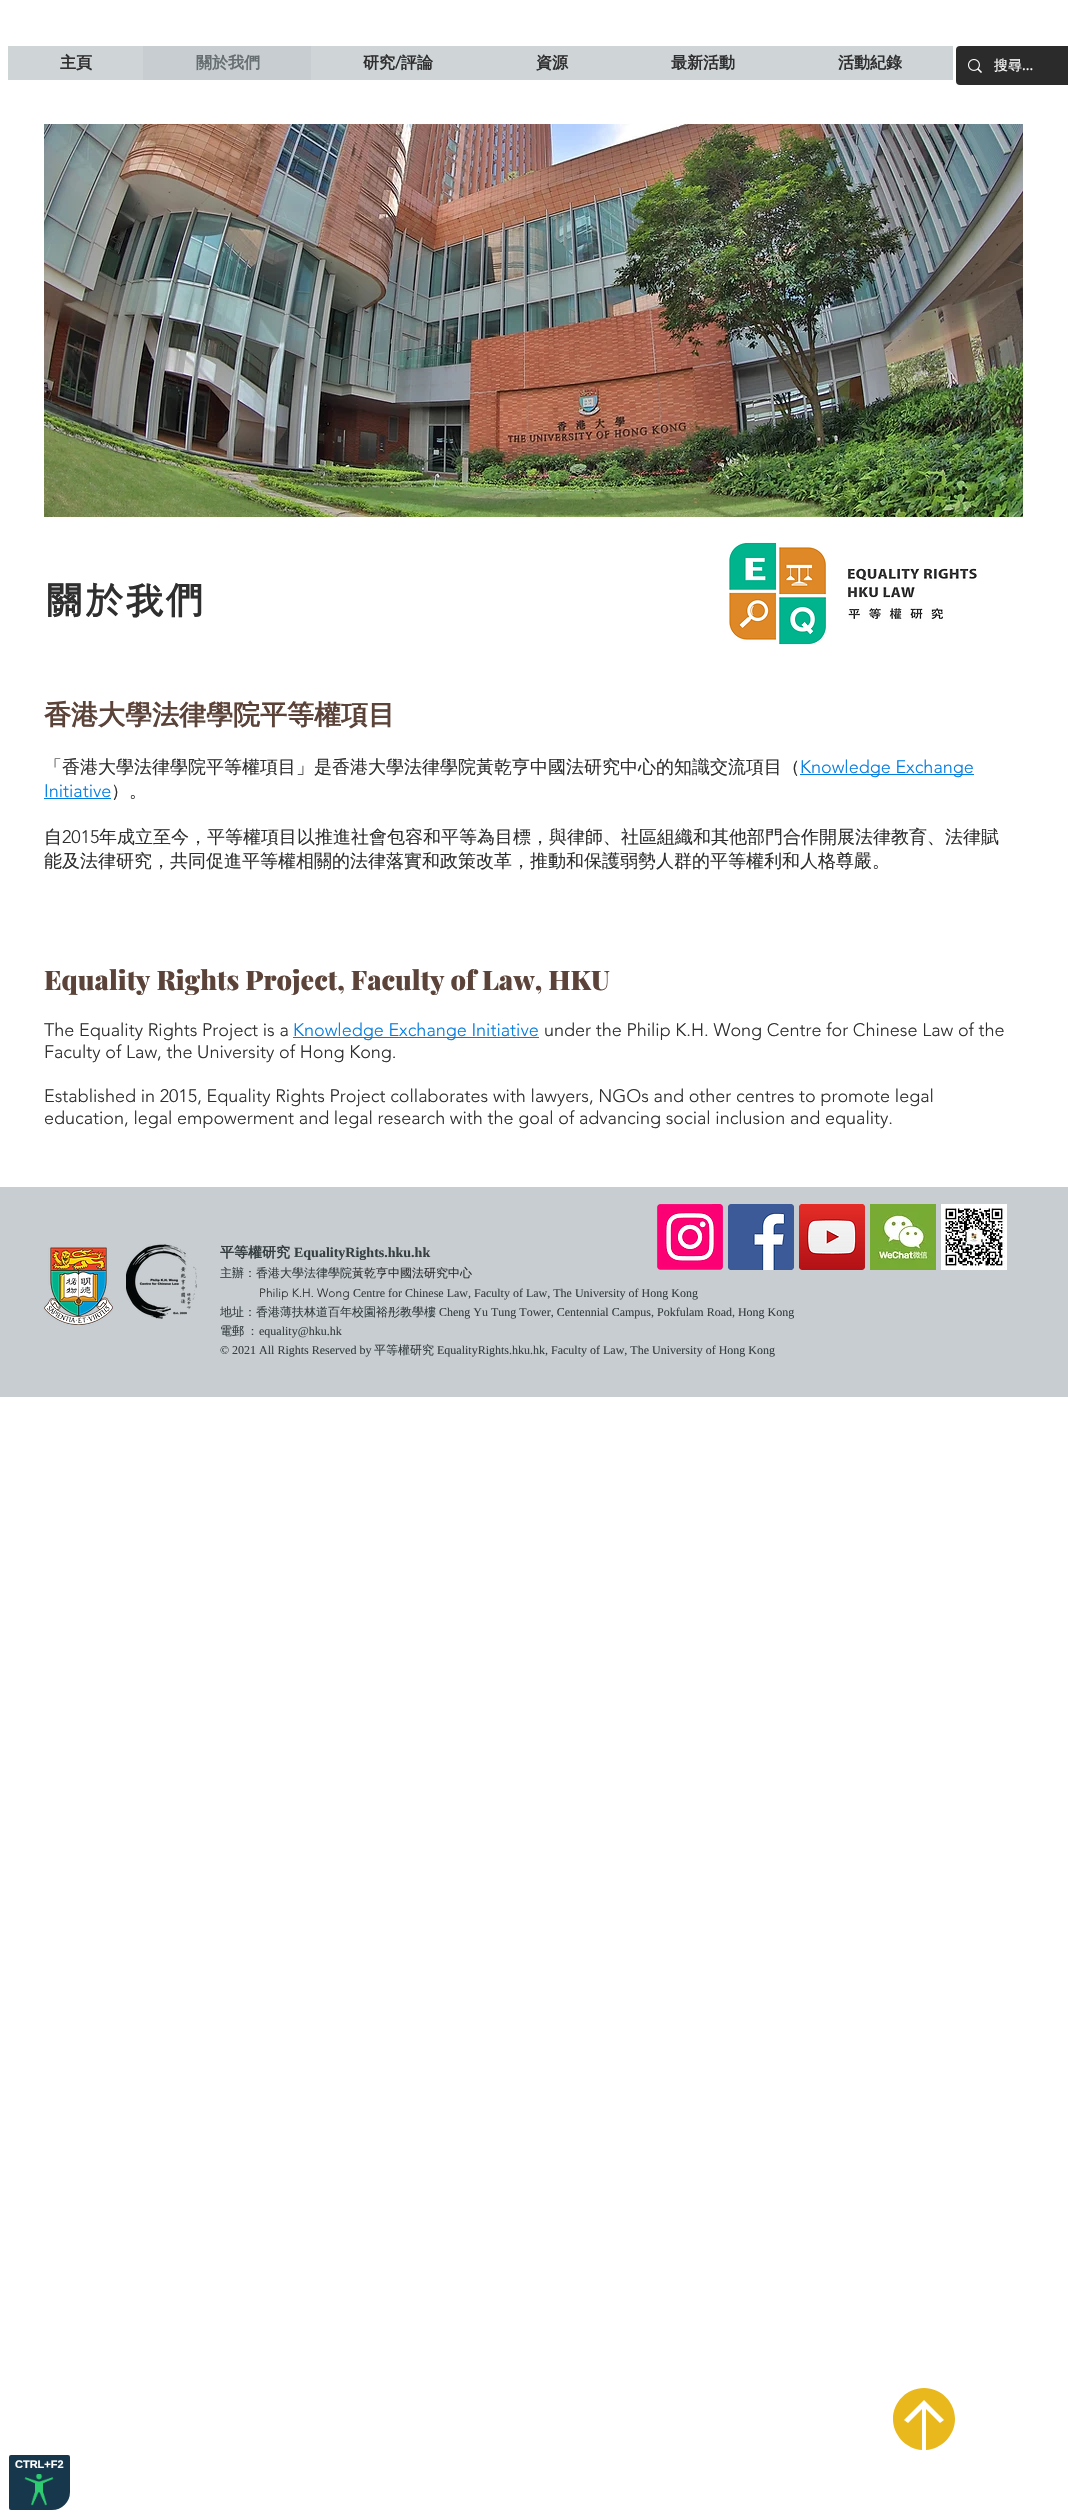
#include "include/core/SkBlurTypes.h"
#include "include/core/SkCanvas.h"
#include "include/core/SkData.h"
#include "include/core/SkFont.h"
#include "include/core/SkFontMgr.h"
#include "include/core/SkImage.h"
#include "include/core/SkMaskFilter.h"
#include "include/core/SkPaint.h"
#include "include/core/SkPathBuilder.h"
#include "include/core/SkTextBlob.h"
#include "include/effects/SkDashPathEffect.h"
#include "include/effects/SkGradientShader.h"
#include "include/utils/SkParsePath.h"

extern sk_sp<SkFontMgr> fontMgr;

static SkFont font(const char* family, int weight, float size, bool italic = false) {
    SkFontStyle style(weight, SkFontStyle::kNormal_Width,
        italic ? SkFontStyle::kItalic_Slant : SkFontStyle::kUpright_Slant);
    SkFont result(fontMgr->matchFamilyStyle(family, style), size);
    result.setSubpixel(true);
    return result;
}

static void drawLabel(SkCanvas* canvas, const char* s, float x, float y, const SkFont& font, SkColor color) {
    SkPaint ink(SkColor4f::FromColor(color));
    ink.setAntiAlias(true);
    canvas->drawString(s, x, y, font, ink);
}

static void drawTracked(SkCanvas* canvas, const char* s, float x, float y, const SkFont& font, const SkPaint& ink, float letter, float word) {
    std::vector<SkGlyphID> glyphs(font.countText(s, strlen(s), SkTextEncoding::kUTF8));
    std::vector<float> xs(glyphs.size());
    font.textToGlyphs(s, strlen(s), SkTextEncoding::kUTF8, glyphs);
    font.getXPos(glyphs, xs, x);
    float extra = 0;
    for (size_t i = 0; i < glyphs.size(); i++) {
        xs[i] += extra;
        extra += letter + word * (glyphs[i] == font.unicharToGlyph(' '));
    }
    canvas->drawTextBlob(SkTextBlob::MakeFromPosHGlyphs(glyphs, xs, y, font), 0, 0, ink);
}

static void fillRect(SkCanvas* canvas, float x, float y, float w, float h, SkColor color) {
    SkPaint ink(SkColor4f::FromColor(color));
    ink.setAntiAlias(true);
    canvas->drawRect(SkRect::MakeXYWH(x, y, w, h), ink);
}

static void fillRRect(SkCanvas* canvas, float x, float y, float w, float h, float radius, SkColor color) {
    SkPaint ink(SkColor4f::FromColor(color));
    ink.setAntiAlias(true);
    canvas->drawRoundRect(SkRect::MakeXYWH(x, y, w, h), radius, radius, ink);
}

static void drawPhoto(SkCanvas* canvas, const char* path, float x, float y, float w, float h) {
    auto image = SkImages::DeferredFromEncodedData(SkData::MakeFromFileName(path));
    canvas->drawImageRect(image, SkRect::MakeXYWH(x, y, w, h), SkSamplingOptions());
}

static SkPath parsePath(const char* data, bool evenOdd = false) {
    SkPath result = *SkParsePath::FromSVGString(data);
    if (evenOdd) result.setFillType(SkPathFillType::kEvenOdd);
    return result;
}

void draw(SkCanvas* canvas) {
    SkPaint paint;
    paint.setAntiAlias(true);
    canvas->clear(0xFFFFFFFF);
    fillRect(canvas, 8, 46, 945, 34, 0xFFCFD5D7);
    SkFont font1 = font("WenQuanYi Zen Hei", 700, 16);
    drawLabel(canvas, "主頁", 60, 68, font1, 0xFF2F2F30);
    fillRect(canvas, 143, 46, 168, 34, 0xFFC7CDD0);
    drawLabel(canvas, "關於我們", 196, 68, font1, 0xFF676E71);
    drawLabel(canvas, "研究", 363, 68, font1, 0xFF2F2F30);
    SkFont font2 = font("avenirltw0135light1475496", 700, 16);
    drawLabel(canvas, "/", 395, 68, font2, 0xFF2F2F30);
    drawLabel(canvas, "評論", 401, 68, font1, 0xFF2F2F30);
    drawLabel(canvas, "資源", 536, 68, font1, 0xFF2F2F30);
    drawLabel(canvas, "最新活動", 671, 68, font1, 0xFF2F2F30);
    drawLabel(canvas, "活動紀錄", 838, 68, font1, 0xFF2F2F30);
    fillRRect(canvas, 956, 46, 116, 39, 4, 0xFF2B2B2B);
    drawPhoto(canvas, "assets/img1.png", 968, 59, 14, 14);
    SkFont font3 = font("WenQuanYi Zen Hei", 500, 14);
    drawLabel(canvas, "搜尋", 994, 70, font3, 0xFFFFFFFF);
    SkFont font4 = font("Libre Baskerville", 400, 14);
    drawLabel(canvas, "...", 1022, 70, font4, 0xFFFFFFFF);
    drawPhoto(canvas, "assets/img2.png", 44, 124, 979, 393);
    SkFont font5 = font("Dotum", 700, 40);
    drawLabel(canvas, "關於我們", 44, 615, font5, 0xFF2F2F30);
    drawPhoto(canvas, "assets/img3.png", 729, 542, 248, 103);
    SkFont font6 = font("WenQuanYi Zen Hei", 700, 27);
    drawLabel(canvas, "香港大學法律學院平等權項目", 44, 724, font6, 0xFF5C4339);
    SkFont font7 = font("WenQuanYi Zen Hei", 500, 18);
    drawLabel(canvas, "「香港大學法律學院平等權項目」是香港大學法律學院黃乾亨中國法研究中心的知識交流項目（", 44, 773, font7, 0xFF2F2F30);
    fillRect(canvas, 800, 774, 174, 1, 0xFF047DE0);
    SkFont font8 = font("avenirltw0135light1475496", 300, 18);
    drawLabel(canvas, "Knowledge Exchange", 800, 773, font8, 0xFF047DE0);
    drawLabel(canvas, "Initiative", 44, 797, font8, 0xFF047DE0);
    fillRect(canvas, 44, 798, 67, 1, 0xFF047DE0);
    drawLabel(canvas, "）。", 111, 797, font7, 0xFF2F2F30);
    drawLabel(canvas, "自", 44, 843, font7, 0xFF2F2F30);
    drawLabel(canvas, "2015", 62, 843, font8, 0xFF2F2F30);
    drawLabel(canvas, "年成立至今，平等權項目以推進社會包容和平等為目標，與律師、社區組織和其他部門合作開展法律教育、法律賦", 99, 843, font7, 0xFF2F2F30);
    drawLabel(canvas, "能及法律研究，共同促進平等權相關的法律落實和政策改革，推動和保護弱勢人群的平等權利和人格尊嚴。", 44, 867, font7, 0xFF2F2F30);
    SkFont font9 = font("Playfair Display", 900, 27);
    drawLabel(canvas, "Equality Rights Project, Faculty of Law, HKU", 44, 990, font9, 0xFF5C4339);
    drawLabel(canvas, "The Equality Rights Project is a", 44, 1036, font8, 0xFF2F2F30);
    fillRect(canvas, 293, 1037, 246, 1, 0xFF047DE0);
    drawLabel(canvas, "Knowledge Exchange Initiative", 293, 1036, font8, 0xFF047DE0);
    drawLabel(canvas, "under the Philip K.H. Wong Centre for Chinese Law of the", 544, 1036, font8, 0xFF2F2F30);
    drawLabel(canvas, "Faculty of Law, the University of Hong Kong.", 44, 1058, font8, 0xFF2F2F30);
    drawLabel(canvas, "Established in 2015, Equality Rights Project collaborates with lawyers, NGOs and other centres to promote legal", 44, 1102, font8, 0xFF2F2F30);
    drawLabel(canvas, "education, legal empowerment and legal research with the goal of advancing social inclusion and equality.", 44, 1124, font8, 0xFF2F2F30);
    fillRect(canvas, 0, 1187, 1068, 210, 0xFFC7CDD0);
    drawPhoto(canvas, "assets/img4.png", 657, 1204, 66, 66);
    drawPhoto(canvas, "assets/img5.png", 728, 1204, 66, 66);
    drawPhoto(canvas, "assets/img6.png", 799, 1204, 66, 66);
    drawPhoto(canvas, "assets/img7.png", 870, 1204, 66, 66);
    drawPhoto(canvas, "assets/img8.png", 941, 1204, 66, 66);
    drawPhoto(canvas, "assets/img9.png", 44, 1247, 69, 79);
    drawPhoto(canvas, "assets/img10.png", 126, 1244, 71, 75);
    SkFont font10 = font("WenQuanYi Zen Hei", 700, 14);
    drawLabel(canvas, "平等權研究", 220, 1257, font10, 0xFF363E41);
    SkFont font11 = font("Liberation Serif", 700, 14);
    drawLabel(canvas, "EqualityRights.hku.hk", 294, 1257, font11, 0xFF363E41);
    SkFont font12 = font("WenQuanYi Zen Hei", 500, 12);
    drawLabel(canvas, "主辦：香港大學法律學院", 220, 1277, font12, 0xFF363E41);
    drawLabel(canvas, "黃乾亨中國法研究中心", 352, 1277, font12, 0xFF2F2F30);
    SkFont font13 = font("avenirltw0135light1475496", 300, 12);
    drawLabel(canvas, "Philip K.H. Wong", 259, 1297, font13, 0xFF2F2F30);
    SkFont font14 = font("Liberation Serif", 400, 12);
    drawLabel(canvas, "Centre for Chinese Law, Faculty of Law, The University of Hong Kong", 353, 1297, font14, 0xFF363E41);
    drawLabel(canvas, "地址：香港薄扶林道百年校園裕彤教學樓", 220, 1316, font12, 0xFF363E41);
    drawLabel(canvas, "Cheng Yu Tung Tower, Centennial Campus, Pokfulam Road, Hong Kong", 439, 1316, font14, 0xFF363E41);
    paint.setColor(0xFF363E41);
    drawTracked(canvas, "電郵 ：", 220, 1335, font12, paint, 0, -1);
    drawLabel(canvas, "equality@hku.hk", 259, 1335, font14, 0xFF363E41);
    drawLabel(canvas, "© 2021 All Rights Reserved by", 220, 1354, font14, 0xFF363E41);
    drawLabel(canvas, "平等權研究", 374, 1354, font12, 0xFF363E41);
    drawLabel(canvas, "EqualityRights.hku.hk, Faculty of Law, The University of Hong Kong", 437, 1354, font14, 0xFF363E41);
    paint.setColor(0xFFE8B81C);
    canvas->drawPath(parsePath("M893 2419C893 2435 906 2449 922 2450V2409L908 2423L904 2420L924 2400L944 2420L940 2423L926 2409V2450C942 2449 955 2435 955 2419C955 2402 941 2388 924 2388C907 2388 893 2402 893 2419Z"), paint);
    paint.setColor(0xFF17384C);
    canvas->drawPath(parsePath("M11 2454H68C69.5 2454 71 2455.5 71 2457V2492C71 2502.5 62.5 2511 52 2511H11C9.5 2511 8 2509.5 8 2508V2457C8 2455.5 9.5 2454 11 2454Z"), paint);
    paint.setStroke(true);
    paint.setStrokeWidth(2);
    paint.setColor(0xFFFFFFFF);
    canvas->drawPath(parsePath("M11 2454H68C69.5 2454 71 2455.5 71 2457V2492C71 2502.5 62.5 2511 52 2511H11C9.5 2511 8 2509.5 8 2508V2457C8 2455.5 9.5 2454 11 2454Z"), paint);
    SkFont font15 = font("Liberation Sans", 700, 11);
    drawLabel(canvas, "CTRL+F2", 15, 2468, font15, 0xFFFFFFFF);
    drawPhoto(canvas, "assets/img11.png", 24, 2474, 30, 32);
}
